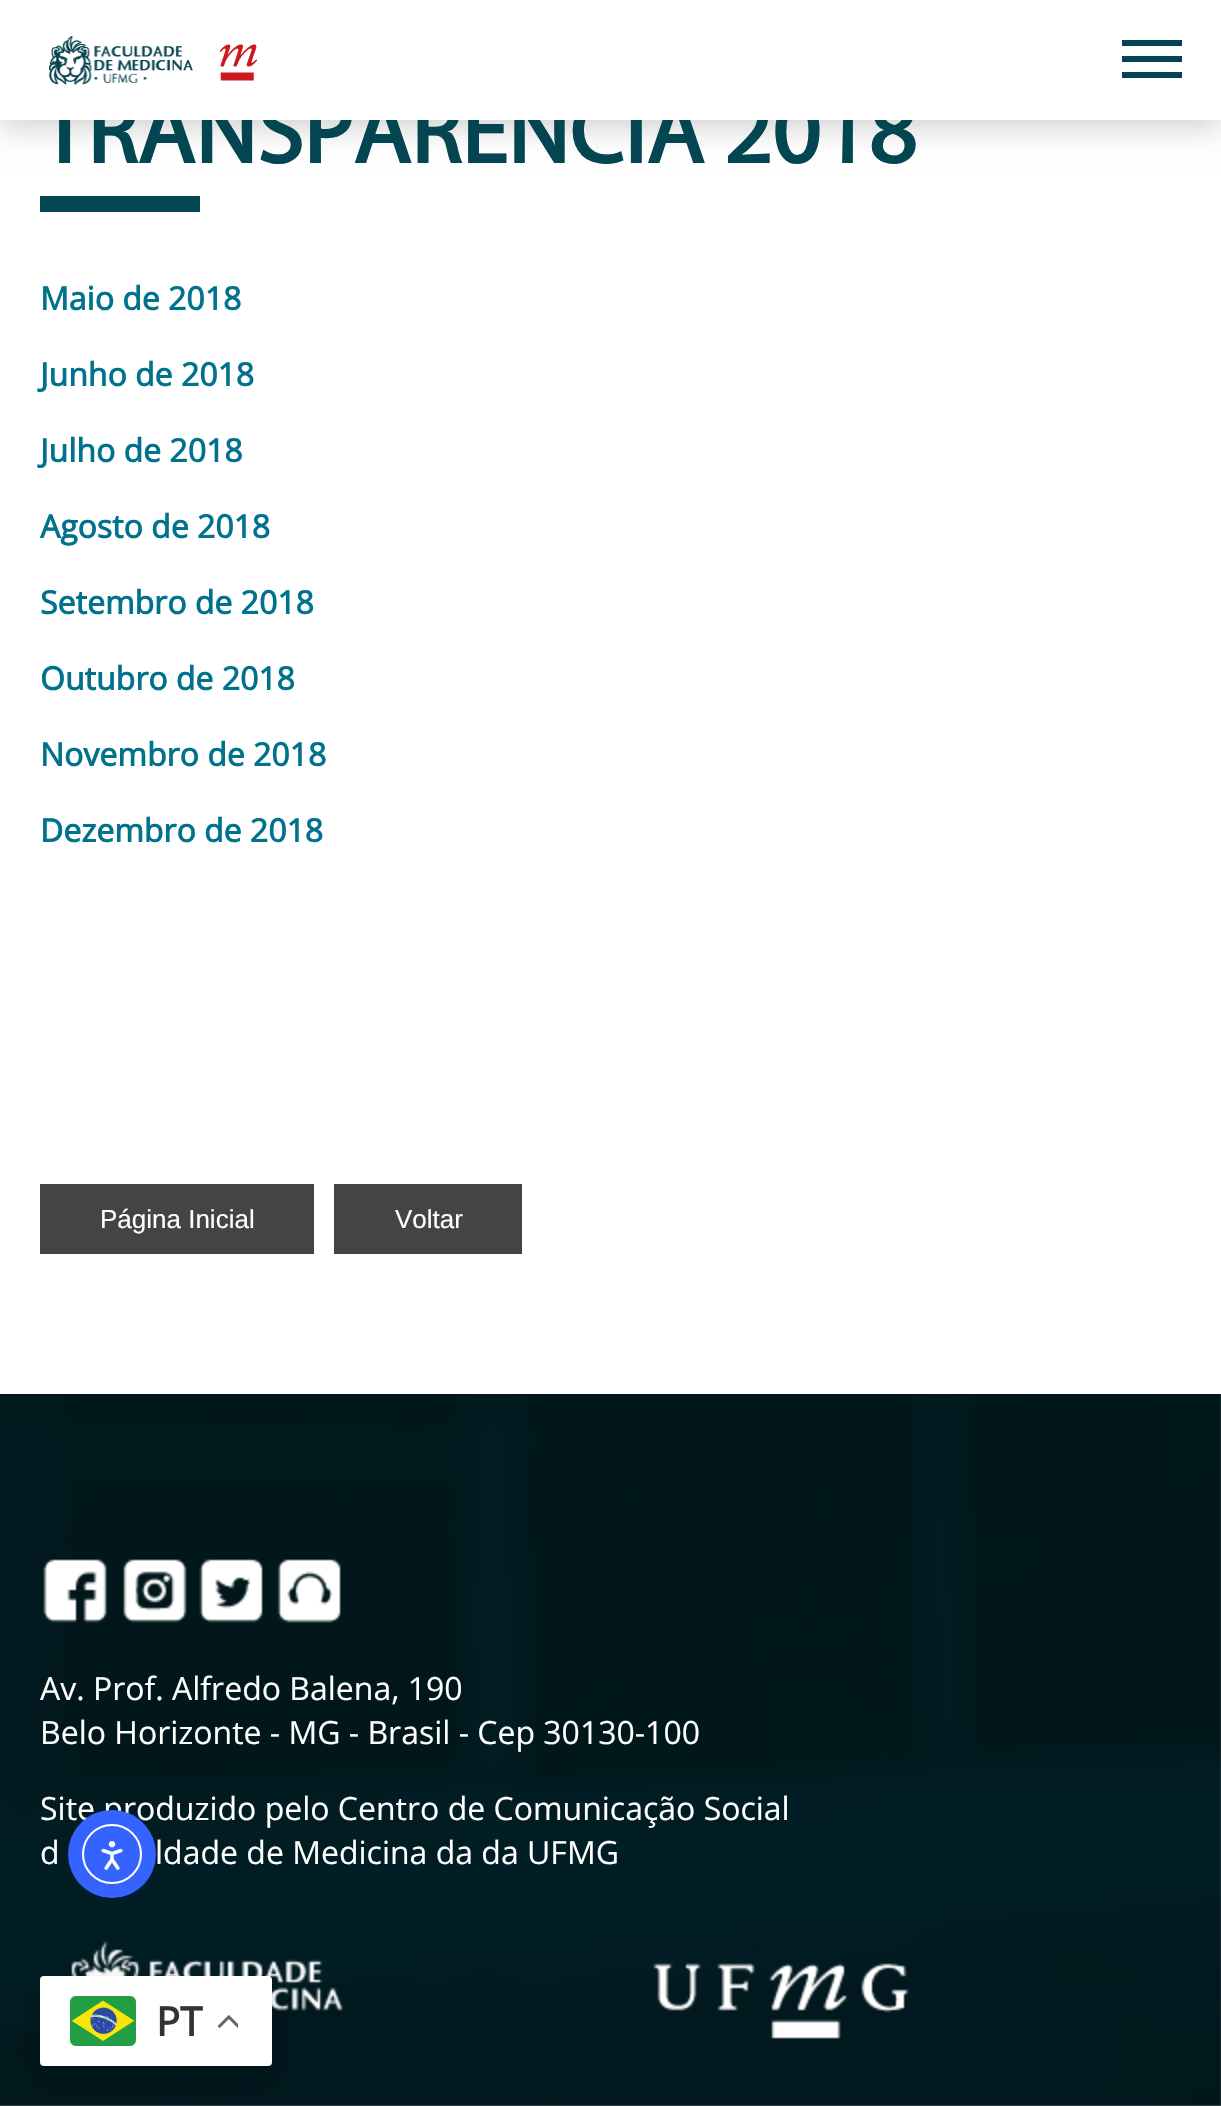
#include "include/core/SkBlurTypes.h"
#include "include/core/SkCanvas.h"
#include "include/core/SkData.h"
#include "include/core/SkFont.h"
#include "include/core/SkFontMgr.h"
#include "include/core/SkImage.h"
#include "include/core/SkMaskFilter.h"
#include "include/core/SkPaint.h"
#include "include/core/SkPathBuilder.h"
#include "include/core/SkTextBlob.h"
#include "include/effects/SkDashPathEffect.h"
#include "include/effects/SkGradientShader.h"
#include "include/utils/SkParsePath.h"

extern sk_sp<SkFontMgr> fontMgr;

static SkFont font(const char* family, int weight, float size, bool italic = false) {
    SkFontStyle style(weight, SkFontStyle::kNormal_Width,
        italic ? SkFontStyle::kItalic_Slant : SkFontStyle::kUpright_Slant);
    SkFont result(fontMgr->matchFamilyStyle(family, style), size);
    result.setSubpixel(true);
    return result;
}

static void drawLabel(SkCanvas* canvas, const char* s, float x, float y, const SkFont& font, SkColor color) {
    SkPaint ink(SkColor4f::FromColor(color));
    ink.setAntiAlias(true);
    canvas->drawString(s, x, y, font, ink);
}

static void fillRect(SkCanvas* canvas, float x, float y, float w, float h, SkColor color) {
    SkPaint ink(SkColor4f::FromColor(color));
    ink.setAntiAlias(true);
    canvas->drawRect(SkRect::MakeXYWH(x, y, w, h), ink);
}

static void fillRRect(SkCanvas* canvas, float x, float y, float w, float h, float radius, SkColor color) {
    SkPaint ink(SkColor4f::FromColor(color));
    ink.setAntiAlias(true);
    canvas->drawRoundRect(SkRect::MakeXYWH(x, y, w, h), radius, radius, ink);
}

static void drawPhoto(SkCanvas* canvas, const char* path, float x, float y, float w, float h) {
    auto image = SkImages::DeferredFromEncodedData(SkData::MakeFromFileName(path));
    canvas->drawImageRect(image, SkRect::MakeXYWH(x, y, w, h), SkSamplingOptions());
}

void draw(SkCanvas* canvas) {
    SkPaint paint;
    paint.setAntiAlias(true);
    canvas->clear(0xFFFFFFFF);
    paint.setColor(0x33000000);
    paint.setMaskFilter(SkMaskFilter::MakeBlur(kNormal_SkBlurStyle, 15));
    canvas->drawRect(SkRect::MakeXYWH(0, 6, 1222, 120), paint);
    paint.setMaskFilter(nullptr);
    SkFont font1 = font("Myriad", 700, 94);
    drawLabel(canvas, "TRANSPARÊNCIA 2018", 40, 163, font1, 0xFF034651);
    fillRect(canvas, 0, 0, 1221, 120, 0xFFFFFFFF);
    drawPhoto(canvas, "assets/img1.png", 49, 36, 144, 49);
    drawPhoto(canvas, "assets/img2.png", 220, 44, 37, 37);
    fillRect(canvas, 1122, 40, 60, 6, 0xFF034651);
    fillRect(canvas, 1122, 72, 60, 6, 0xFF034651);
    fillRect(canvas, 1122, 56, 60, 6, 0xFF034651);
    fillRect(canvas, 40, 196, 160, 16, 0xFF034651);
    SkFont font2 = font("Open Sans", 700, 32);
    drawLabel(canvas, "Maio de 2018", 40, 310, font2, 0xFF00728D);
    drawLabel(canvas, "Junho de 2018", 40, 386, font2, 0xFF00728D);
    drawLabel(canvas, "Julho de 2018", 40, 462, font2, 0xFF00728D);
    drawLabel(canvas, "Agosto de 2018", 40, 538, font2, 0xFF00728D);
    drawLabel(canvas, "Setembro de 2018", 40, 614, font2, 0xFF00728D);
    drawLabel(canvas, "Outubro de 2018", 40, 690, font2, 0xFF00728D);
    drawLabel(canvas, "Novembro de 2018", 40, 766, font2, 0xFF00728D);
    drawLabel(canvas, "Dezembro de 2018", 40, 842, font2, 0xFF00728D);
    fillRect(canvas, 40, 1184, 274, 70, 0xFF444444);
    SkFont font3 = font("Liberation Sans", 400, 26);
    drawLabel(canvas, "Página Inicial", 100, 1228, font3, 0xFFFFFFFF);
    fillRect(canvas, 334, 1184, 188, 70, 0xFF444444);
    drawLabel(canvas, "Voltar", 395, 1228, font3, 0xFFFFFFFF);
    drawPhoto(canvas, "assets/img3.png", 0, 1394, 1221, 712);
    drawPhoto(canvas, "assets/img4.png", 43, 1559, 64, 64);
    drawPhoto(canvas, "assets/img5.png", 123, 1559, 64, 64);
    drawPhoto(canvas, "assets/img6.png", 199, 1559, 64, 64);
    drawPhoto(canvas, "assets/img7.png", 277, 1559, 64, 64);
    SkFont font4 = font("Open Sans", 400, 32);
    drawLabel(canvas, "Av. Prof. Alfredo Balena, 190", 40, 1700, font4, 0xFFFFFFFF);
    drawLabel(canvas, "Belo Horizonte - MG - Brasil - Cep 30130-100", 40, 1744, font4, 0xFFFFFFFF);
    drawLabel(canvas, "Site produzido pelo Centro de Comunicação Social", 40, 1820, font4, 0xFFFFFFFF);
    drawLabel(canvas, "d", 40, 1864, font4, 0xFFFFFFFF);
    drawLabel(canvas, "ldade de Medicina da da UFMG", 155, 1864, font4, 0xFFFFFFFF);
    drawPhoto(canvas, "assets/img8.png", 71, 1941, 272, 70);
    drawPhoto(canvas, "assets/img9.png", 653, 1963, 256, 76);
    paint.setColor(0x26000000);
    paint.setMaskFilter(SkMaskFilter::MakeBlur(kNormal_SkBlurStyle, 15));
    canvas->drawRoundRect(SkRect::MakeXYWH(40, 1986, 232, 90), 4, 4, paint);
    paint.setMaskFilter(nullptr);
    fillRRect(canvas, 40, 1976, 232, 90, 4, 0xFFFFFFFF);
    drawPhoto(canvas, "assets/img10.png", 70, 1996, 66, 50);
    SkFont font5 = font("Open Sans", 700, 40);
    drawLabel(canvas, "PT", 156, 2036, font5, 0xFF333333);
    drawPhoto(canvas, "assets/img11.png", 217, 2015, 21, 13);
    paint.setColor(0xFF3463FF);
    canvas->drawCircle(112, 1854, 44, paint);
    paint.setStroke(true);
    paint.setStrokeWidth(2);
    paint.setColor(0xFFFFFFFF);
    canvas->drawCircle(112, 1854, 29, paint);
    drawPhoto(canvas, "assets/img12.png", 101, 1841, 22, 29);
}
